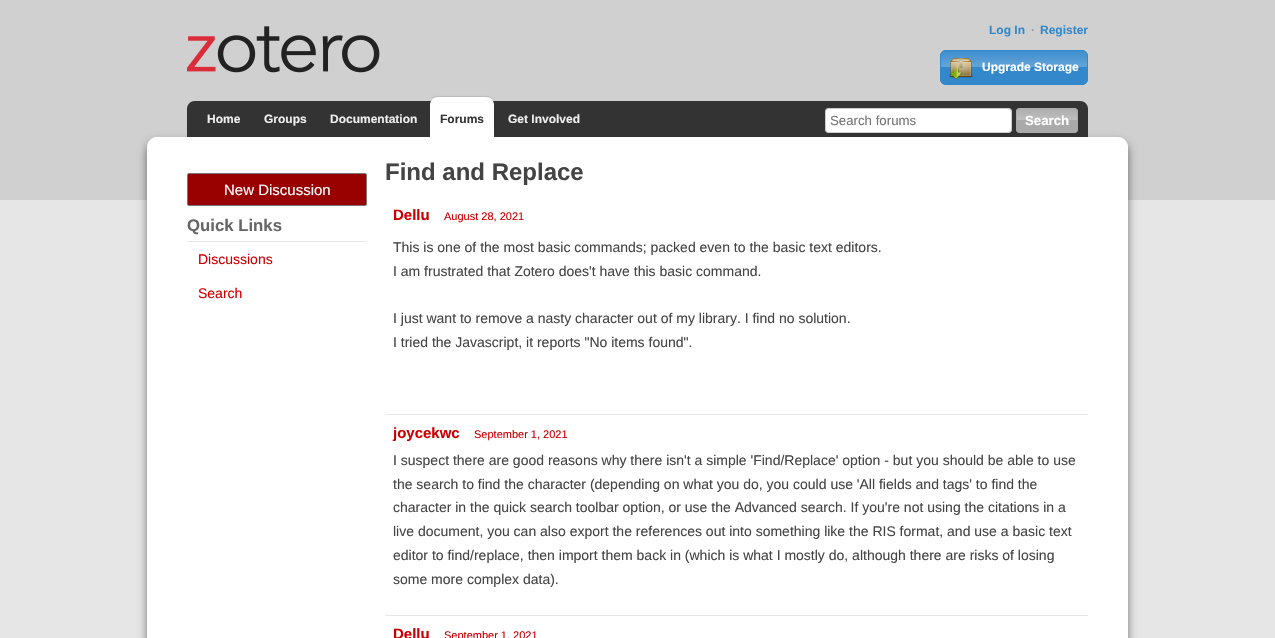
#include "include/core/SkBlurTypes.h"
#include "include/core/SkCanvas.h"
#include "include/core/SkData.h"
#include "include/core/SkFont.h"
#include "include/core/SkFontMgr.h"
#include "include/core/SkImage.h"
#include "include/core/SkMaskFilter.h"
#include "include/core/SkPaint.h"
#include "include/core/SkPathBuilder.h"
#include "include/core/SkTextBlob.h"
#include "include/effects/SkDashPathEffect.h"
#include "include/effects/SkGradientShader.h"
#include "include/utils/SkParsePath.h"

extern sk_sp<SkFontMgr> fontMgr;

static SkFont font(const char* family, int weight, float size, bool italic = false) {
    SkFontStyle style(weight, SkFontStyle::kNormal_Width,
        italic ? SkFontStyle::kItalic_Slant : SkFontStyle::kUpright_Slant);
    SkFont result(fontMgr->matchFamilyStyle(family, style), size);
    result.setSubpixel(true);
    return result;
}

static void drawLabel(SkCanvas* canvas, const char* s, float x, float y, const SkFont& font, SkColor color) {
    SkPaint ink(SkColor4f::FromColor(color));
    ink.setAntiAlias(true);
    canvas->drawString(s, x, y, font, ink);
}

static void fillRect(SkCanvas* canvas, float x, float y, float w, float h, SkColor color) {
    SkPaint ink(SkColor4f::FromColor(color));
    ink.setAntiAlias(true);
    canvas->drawRect(SkRect::MakeXYWH(x, y, w, h), ink);
}

static void fillRRect(SkCanvas* canvas, float x, float y, float w, float h, float radius, SkColor color) {
    SkPaint ink(SkColor4f::FromColor(color));
    ink.setAntiAlias(true);
    canvas->drawRoundRect(SkRect::MakeXYWH(x, y, w, h), radius, radius, ink);
}

static void drawPhoto(SkCanvas* canvas, const char* path, float x, float y, float w, float h) {
    auto image = SkImages::DeferredFromEncodedData(SkData::MakeFromFileName(path));
    canvas->drawImageRect(image, SkRect::MakeXYWH(x, y, w, h), SkSamplingOptions());
}

static SkPath parsePath(const char* data, bool evenOdd = false) {
    SkPath result = *SkParsePath::FromSVGString(data);
    if (evenOdd) result.setFillType(SkPathFillType::kEvenOdd);
    return result;
}

void draw(SkCanvas* canvas) {
    SkPaint paint;
    paint.setAntiAlias(true);
    canvas->clear(0xFFE6E6E6);
    fillRect(canvas, 0, 0, 1275, 200, 0xFFD0D0D0);
    drawPhoto(canvas, "assets/img1.png", 187, 26, 193, 47);
    SkFont font1 = font("Liberation Sans", 700, 12);
    drawLabel(canvas, "Log In", 989, 34, font1, 0xFF3388CC);
    drawLabel(canvas, "·", 1031, 34, font1, 0xFF999999);
    drawLabel(canvas, "Register", 1040, 34, font1, 0xFF3388CC);
    fillRRect(canvas, 940, 50, 148, 35, 6, 0xFF3388CC);
    {
        const SkColor colors[] = {0x0DFFFFFF, 0x40FFFFFF, 0x00FFFFFF, 0x00FFFFFF};
        const float stops[] = {0, 0.5f, 0.5f, 1};
        const SkPoint ends[] = {{1014, 51}, {1014, 84}};
        paint.setShader(SkGradientShader::MakeLinear(ends, colors, stops, 4, SkTileMode::kClamp));
        paint.setAlpha(255);
    }
    canvas->drawRect(SkRect::MakeXYWH(940, 51, 148, 16), paint);
    paint.setStroke(true);
    paint.setStrokeWidth(1);
    paint.setShader(nullptr);
    paint.setColor(0xFF3388CC);
    canvas->drawRoundRect(SkRect::MakeXYWH(940.5f, 50.5f, 147, 34), 5.5f, 5.5f, paint);
    drawPhoto(canvas, "assets/img2.png", 949, 58, 24, 22);
    drawLabel(canvas, "Upgrade Storage", 982, 71, font1, 0xFFFFFFFF);
    paint.setStroke(false);
    paint.setColor(0x80000000);
    paint.setMaskFilter(SkMaskFilter::MakeBlur(kNormal_SkBlurStyle, 5));
    canvas->drawRoundRect(SkRect::MakeXYWH(147, 142, 981, 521), 10, 10, paint);
    paint.setMaskFilter(nullptr);
    paint.setColor(0xFF333333);
    canvas->drawPath(parsePath("M195 101H1080C1084.5 101 1088 104.5 1088 109V137H187V109C187 104.5 190.5 101 195 101Z"), paint);
    drawLabel(canvas, "Home", 207, 123, font1, 0xFFEEEEEE);
    drawLabel(canvas, "Groups", 264, 123, font1, 0xFFEEEEEE);
    drawLabel(canvas, "Documentation", 330, 123, font1, 0xFFEEEEEE);
    paint.setColor(0xFFFFFFFF);
    canvas->drawPath(parsePath("M157 137H1118C1123.5 137 1128 141.5 1128 147V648H147V147C147 141.5 151.5 137 157 137Z"), paint);
    paint.setColor(0x1A000000);
    paint.setMaskFilter(SkMaskFilter::MakeBlur(kNormal_SkBlurStyle, 0.5f));
    canvas->drawRoundRect(SkRect::MakeXYWH(430, 96, 64, 41), 8, 8, paint);
    paint.setMaskFilter(nullptr);
    paint.setColor(0xFFFFFFFF);
    canvas->drawPath(parsePath("M438 97H486C490.5 97 494 100.5 494 105V138H430V105C430 100.5 433.5 97 438 97Z"), paint);
    drawLabel(canvas, "Forums", 440, 123, font1, 0xFF333333);
    drawLabel(canvas, "Get Involved", 508, 123, font1, 0xFFEEEEEE);
    fillRRect(canvas, 825, 108, 187, 25, 4, 0xFFFFFFFF);
    paint.setStroke(true);
    paint.setColor(0x33000000);
    canvas->drawRoundRect(SkRect::MakeXYWH(825.5f, 108.5f, 186, 24), 3.5f, 3.5f, paint);
    SkFont font2 = font("Liberation Sans", 400, 13.25f);
    drawLabel(canvas, "Search forums", 830, 125, font2, 0xFF757575);
    fillRRect(canvas, 1016, 108, 62, 25, 4, 0xFFAAAAAA);
    paint.setStroke(false);
    {
        const SkColor colors[] = {0x0DFFFFFF, 0x40FFFFFF, 0x00FFFFFF, 0x00FFFFFF};
        const float stops[] = {0, 0.5f, 0.5f, 1};
        const SkPoint ends[] = {{1047, 109}, {1047, 132}};
        paint.setShader(SkGradientShader::MakeLinear(ends, colors, stops, 4, SkTileMode::kClamp));
        paint.setAlpha(255);
    }
    canvas->drawRect(SkRect::MakeXYWH(1016, 109, 62, 11), paint);
    paint.setStroke(true);
    paint.setShader(nullptr);
    paint.setColor(0xFFAAAAAA);
    canvas->drawRoundRect(SkRect::MakeXYWH(1016.5f, 108.5f, 61, 24), 3.5f, 3.5f, paint);
    SkFont font3 = font("Liberation Sans", 700, 13.25f);
    drawLabel(canvas, "Search", 1025, 125, font3, 0xFFFFFFFF);
    paint.setStroke(false);
    paint.setColor(0xFF990000);
    canvas->drawRoundRect(SkRect::MakeXYWH(187.5f, 173.5f, 179, 32), 1.5f, 1.5f, paint);
    paint.setStroke(true);
    paint.setColor(0xFF777777);
    canvas->drawRoundRect(SkRect::MakeXYWH(187.5f, 173.5f, 179, 32), 1.5f, 1.5f, paint);
    SkFont font4 = font("Liberation Sans", 400, 15);
    drawLabel(canvas, "New Discussion", 224, 195, font4, 0xFFFFFFFF);
    SkFont font5 = font("Liberation Sans", 700, 16.75f);
    drawLabel(canvas, "Quick Links", 187, 231, font5, 0xFF666666);
    fillRect(canvas, 187, 241, 180, 1, 0xFFE6E6E6);
    SkFont font6 = font("Liberation Sans", 400, 14);
    drawLabel(canvas, "Discussions", 198, 264, font6, 0xFFCC0000);
    drawLabel(canvas, "Search", 198, 298, font6, 0xFFCC0000);
    SkFont font7 = font("Liberation Sans", 700, 24);
    drawLabel(canvas, "Find and Replace", 385, 180, font7, 0xFF444444);
    SkFont font8 = font("Liberation Sans", 700, 15);
    drawLabel(canvas, "Dellu", 393, 220, font8, 0xFFCC0000);
    SkFont font9 = font("Liberation Sans", 400, 11);
    drawLabel(canvas, "August 28, 2021", 444, 220, font9, 0xFFCC0000);
    drawLabel(canvas, "This is one of the most basic commands; packed even to the basic text editors.", 393, 252, font6, 0xFF444444);
    drawLabel(canvas, "I am frustrated that Zotero does't have this basic command.", 393, 276, font6, 0xFF444444);
    drawLabel(canvas, "I just want to remove a nasty character out of my library. I find no solution.", 393, 323, font6, 0xFF444444);
    drawLabel(canvas, "I tried the Javascript, it reports \"No items found\".", 393, 347, font6, 0xFF444444);
    fillRect(canvas, 385, 414, 703, 1, 0xFFE6E6E6);
    fillRect(canvas, 385, 615, 703, 1, 0xFFE6E6E6);
    drawLabel(canvas, "joycekwc", 393, 438, font8, 0xFFCC0000);
    drawLabel(canvas, "September 1, 2021", 474, 438, font9, 0xFFCC0000);
    drawLabel(canvas, "I suspect there are good reasons why there isn't a simple 'Find/Replace' option - but you should be able to use", 393, 465, font6, 0xFF444444);
    drawLabel(canvas, "the search to find the character (depending on what you do, you could use 'All fields and tags' to find the", 393, 489, font6, 0xFF444444);
    drawLabel(canvas, "character in the quick search toolbar option, or use the Advanced search. If you're not using the citations in a", 393, 512, font6, 0xFF444444);
    drawLabel(canvas, "live document, you can also export the references out into something like the RIS format, and use a basic text", 393, 536, font6, 0xFF444444);
    drawLabel(canvas, "editor to find/replace, then import them back in (which is what I mostly do, although there are risks of losing", 393, 560, font6, 0xFF444444);
    drawLabel(canvas, "some more complex data).", 393, 584, font6, 0xFF444444);
    drawLabel(canvas, "Dellu", 393, 639, font8, 0xFFCC0000);
    drawLabel(canvas, "September 1, 2021", 444, 639, font9, 0xFFCC0000);
}
